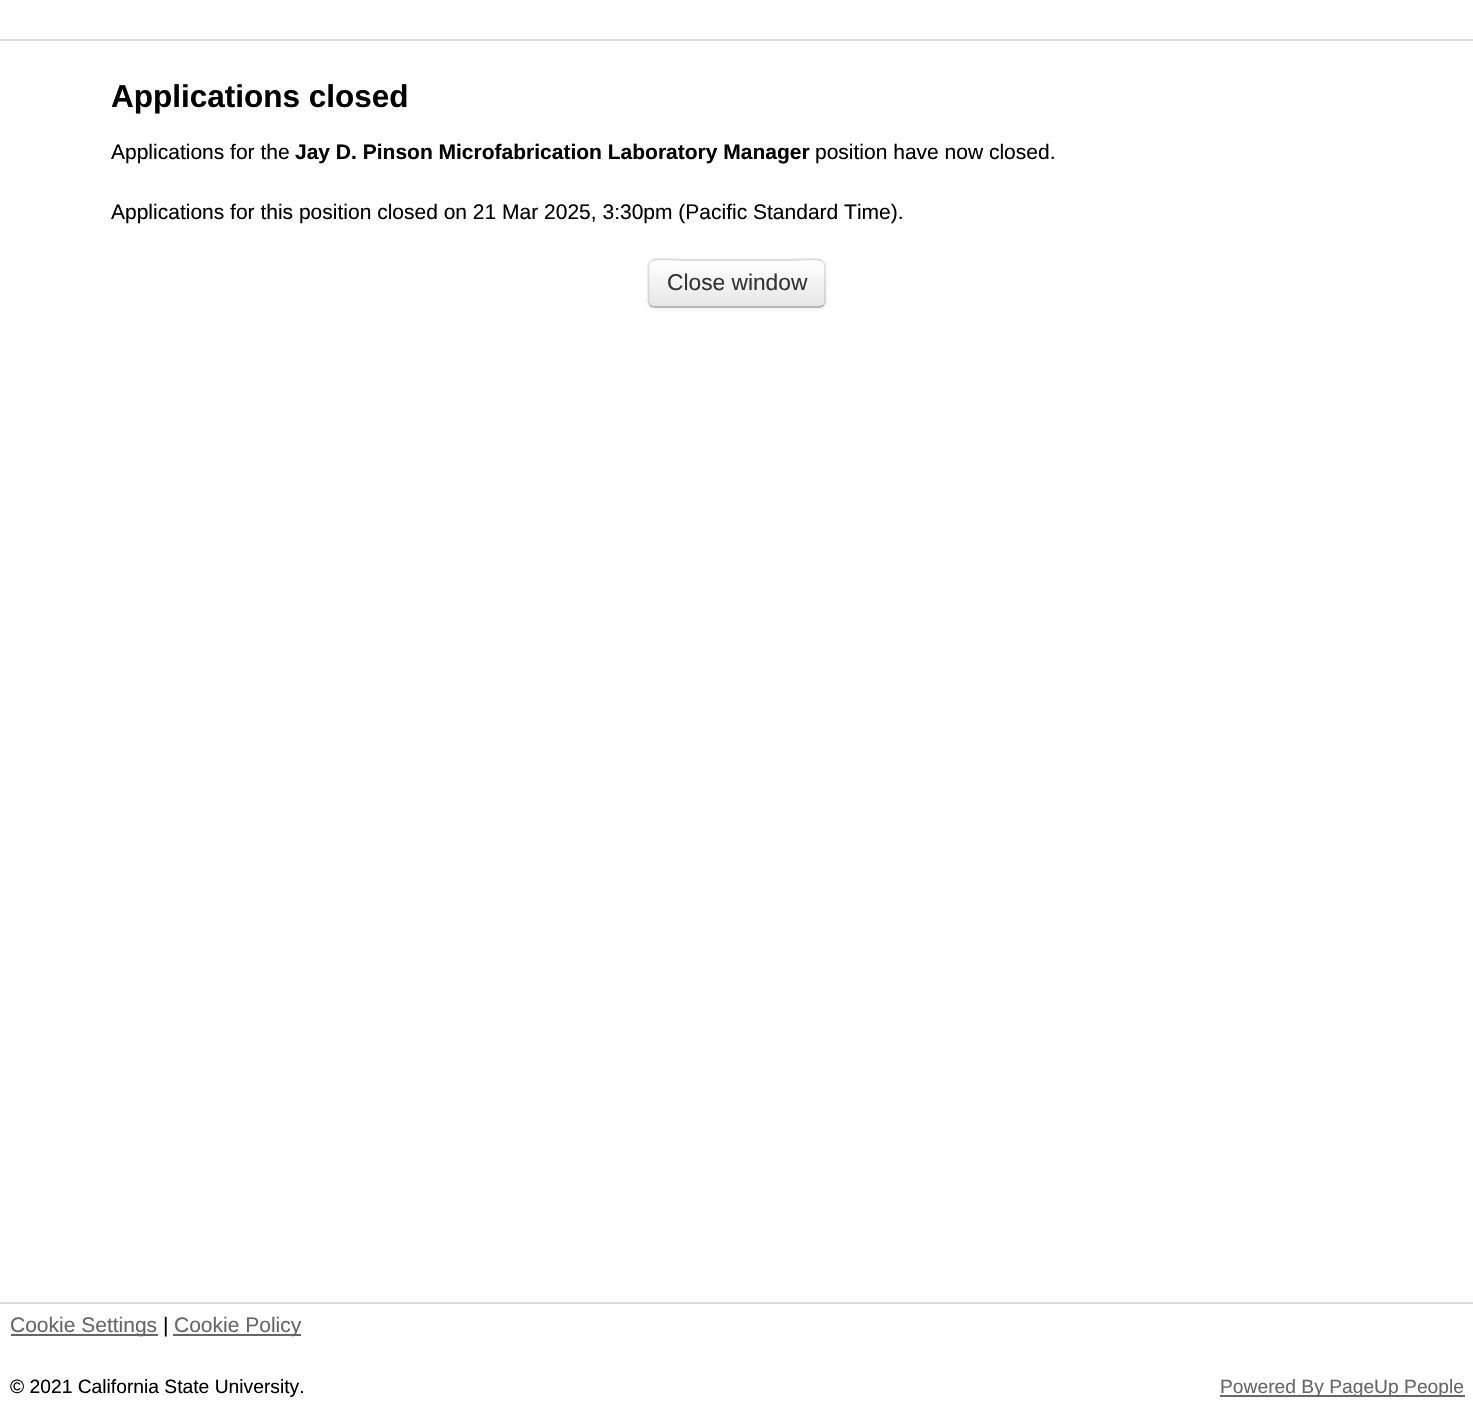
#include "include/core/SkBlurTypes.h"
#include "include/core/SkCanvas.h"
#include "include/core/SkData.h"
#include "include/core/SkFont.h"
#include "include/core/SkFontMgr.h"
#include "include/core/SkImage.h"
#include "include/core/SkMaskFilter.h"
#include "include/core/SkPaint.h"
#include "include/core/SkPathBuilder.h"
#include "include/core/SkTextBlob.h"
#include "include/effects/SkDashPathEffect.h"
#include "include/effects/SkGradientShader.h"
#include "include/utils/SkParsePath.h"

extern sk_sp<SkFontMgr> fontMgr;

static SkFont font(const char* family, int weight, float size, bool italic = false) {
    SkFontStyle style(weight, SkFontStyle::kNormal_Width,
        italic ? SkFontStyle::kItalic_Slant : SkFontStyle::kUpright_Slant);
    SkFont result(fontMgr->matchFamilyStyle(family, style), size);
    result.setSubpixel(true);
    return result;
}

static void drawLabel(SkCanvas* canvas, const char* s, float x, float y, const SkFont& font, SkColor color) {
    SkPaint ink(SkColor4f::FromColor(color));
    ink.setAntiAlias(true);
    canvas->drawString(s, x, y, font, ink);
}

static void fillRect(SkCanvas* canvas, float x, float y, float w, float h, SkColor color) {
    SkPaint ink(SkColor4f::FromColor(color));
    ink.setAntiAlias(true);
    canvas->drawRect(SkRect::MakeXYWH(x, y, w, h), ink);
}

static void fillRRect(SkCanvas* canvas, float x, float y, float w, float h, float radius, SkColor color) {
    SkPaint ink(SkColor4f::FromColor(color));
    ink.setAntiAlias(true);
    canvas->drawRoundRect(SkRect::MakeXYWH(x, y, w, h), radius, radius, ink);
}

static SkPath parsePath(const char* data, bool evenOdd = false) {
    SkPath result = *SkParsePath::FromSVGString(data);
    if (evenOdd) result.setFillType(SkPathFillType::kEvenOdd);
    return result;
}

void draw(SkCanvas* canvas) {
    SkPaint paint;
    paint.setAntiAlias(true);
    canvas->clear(0xFFFFFFFF);
    fillRect(canvas, 0, 39, 1473, 2, 0xFFDDDDDD);
    SkFont font1 = font("Liberation Sans", 700, 31.5f);
    drawLabel(canvas, "Applications closed", 111, 107, font1, 0xFF000000);
    SkFont font2 = font("Liberation Sans", 400, 21);
    drawLabel(canvas, "Applications for the", 111, 159, font2, 0xFF000000);
    SkFont font3 = font("Liberation Sans", 700, 21);
    drawLabel(canvas, "Jay D. Pinson Microfabrication Laboratory Manager", 295, 159, font3, 0xFF000000);
    drawLabel(canvas, "position have now closed.", 815, 159, font2, 0xFF000000);
    drawLabel(canvas, "Applications for this position closed on 21 Mar 2025, 3:30pm (Pacific Standard Time).", 111, 219, font2, 0xFF000000);
    paint.setColor(0x0D000000);
    paint.setMaskFilter(SkMaskFilter::MakeBlur(kNormal_SkBlurStyle, 2));
    canvas->drawRoundRect(SkRect::MakeXYWH(648, 261, 178, 49), 7, 7, paint);
    paint.setMaskFilter(nullptr);
    fillRRect(canvas, 648, 259, 178, 49, 7, 0xFFF5F5F5);
    canvas->save();
    canvas->clipPath(parsePath("M655 259H819C823 259 826 262 826 266V301C826 305 823 308 819 308H655C651 308 648 305 648 301V266C648 262 651 259 655 259Z"), true);
    {
        const SkColor colors[] = {0xFFFFFFFF, 0xFFE6E6E6};
        const float stops[] = {0, 1};
        const SkPoint ends[] = {{737, 261}, {737, 306}};
        paint.setShader(SkGradientShader::MakeLinear(ends, colors, stops, 2, SkTileMode::kClamp));
        paint.setAlpha(255);
    }
    canvas->drawRect(SkRect::MakeXYWH(648, 261, 178, 45), paint);
    canvas->restore();
    paint.setStroke(true);
    paint.setStrokeWidth(1.8f);
    paint.setShader(nullptr);
    paint.setColor(0x40000000);
    canvas->drawPath(parsePath("M823.5 305.5C822 306.5 820.5 307 819 307H654.5C653 307 651.5 306.5 650 305.5"), paint);
    paint.setColor(0x1A000000);
    canvas->drawPath(parsePath("M650 305.5C647.5 302.5 648.5 298.5 648.5 295V265C650.5 255 674 260 682 260H791.5C799.5 260 823 255 825 265V295C825 298.5 826 302.5 823.5 305.5"), paint);
    SkFont font4 = font("Liberation Sans", 400, 22.75f);
    drawLabel(canvas, "Close window", 667, 290, font4, 0xFF333333);
    fillRect(canvas, 0, 1302, 1473, 2, 0xFFDDDDDD);
    fillRect(canvas, 11, 1334, 147, 2, 0xFF666666);
    drawLabel(canvas, "Cookie Settings", 10, 1332, font2, 0xFF666666);
    drawLabel(canvas, "|", 163, 1332, font2, 0xFF000000);
    fillRect(canvas, 173, 1334, 128, 2, 0xFF666666);
    drawLabel(canvas, "Cookie Policy", 174, 1332, font2, 0xFF666666);
    SkFont font5 = font("Liberation Sans", 400, 19.25f);
    drawLabel(canvas, "© 2021 California State University.", 10, 1393, font5, 0xFF000000);
    fillRect(canvas, 1220, 1395, 245, 2, 0xFF666666);
    drawLabel(canvas, "Powered By PageUp People", 1220, 1393, font5, 0xFF666666);
}
